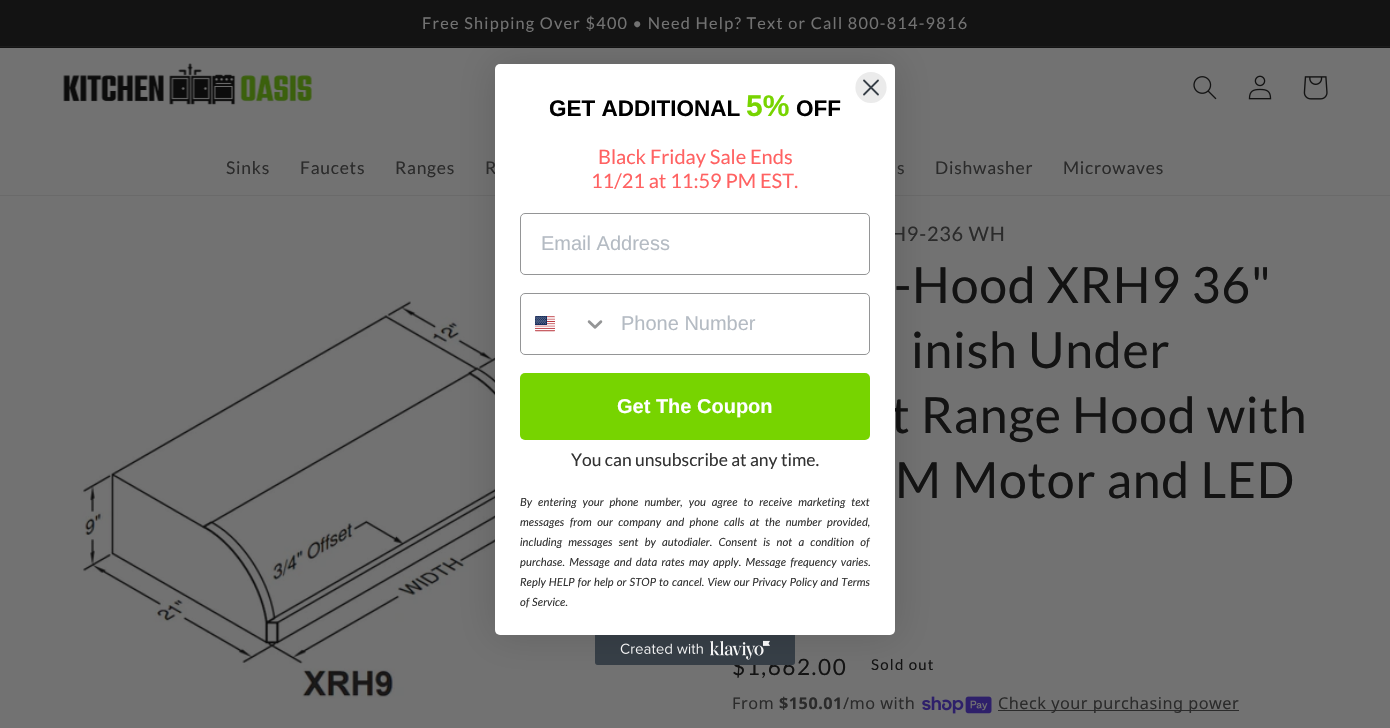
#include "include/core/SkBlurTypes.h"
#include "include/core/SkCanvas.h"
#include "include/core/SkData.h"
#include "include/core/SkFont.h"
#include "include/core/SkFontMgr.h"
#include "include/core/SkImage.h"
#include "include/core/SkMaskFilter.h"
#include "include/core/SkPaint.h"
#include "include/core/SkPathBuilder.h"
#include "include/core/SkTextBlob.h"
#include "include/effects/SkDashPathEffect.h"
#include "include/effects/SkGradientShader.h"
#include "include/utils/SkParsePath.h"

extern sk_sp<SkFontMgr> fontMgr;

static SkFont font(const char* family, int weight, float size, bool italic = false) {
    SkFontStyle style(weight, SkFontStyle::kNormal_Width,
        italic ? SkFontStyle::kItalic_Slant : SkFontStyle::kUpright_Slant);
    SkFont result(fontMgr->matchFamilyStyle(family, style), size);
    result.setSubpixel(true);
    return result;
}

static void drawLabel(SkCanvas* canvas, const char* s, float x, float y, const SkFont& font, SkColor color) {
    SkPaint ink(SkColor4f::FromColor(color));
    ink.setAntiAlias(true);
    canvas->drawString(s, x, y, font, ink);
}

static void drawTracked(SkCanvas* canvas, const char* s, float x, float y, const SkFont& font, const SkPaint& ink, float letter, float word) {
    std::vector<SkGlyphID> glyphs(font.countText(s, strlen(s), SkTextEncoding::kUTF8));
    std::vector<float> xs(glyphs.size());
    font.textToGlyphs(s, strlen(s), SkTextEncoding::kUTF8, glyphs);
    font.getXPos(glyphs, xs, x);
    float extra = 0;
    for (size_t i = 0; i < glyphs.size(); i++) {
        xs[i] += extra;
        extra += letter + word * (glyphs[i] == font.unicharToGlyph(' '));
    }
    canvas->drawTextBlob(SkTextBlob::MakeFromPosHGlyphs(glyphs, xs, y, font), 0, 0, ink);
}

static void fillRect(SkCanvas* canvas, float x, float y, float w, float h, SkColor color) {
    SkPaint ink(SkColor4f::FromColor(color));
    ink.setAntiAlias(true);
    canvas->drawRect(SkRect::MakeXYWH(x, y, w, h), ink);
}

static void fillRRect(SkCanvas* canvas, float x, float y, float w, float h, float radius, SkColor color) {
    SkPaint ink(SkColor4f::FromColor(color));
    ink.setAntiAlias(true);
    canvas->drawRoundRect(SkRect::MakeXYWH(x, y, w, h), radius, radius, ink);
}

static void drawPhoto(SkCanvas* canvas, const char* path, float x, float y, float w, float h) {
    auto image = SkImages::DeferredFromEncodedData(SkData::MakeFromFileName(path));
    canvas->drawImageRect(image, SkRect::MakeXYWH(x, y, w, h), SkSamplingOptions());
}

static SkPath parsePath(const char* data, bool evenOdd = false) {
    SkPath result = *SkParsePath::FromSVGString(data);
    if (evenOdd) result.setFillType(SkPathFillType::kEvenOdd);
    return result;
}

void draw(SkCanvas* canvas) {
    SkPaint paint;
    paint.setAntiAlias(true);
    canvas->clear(0xFF727272);
    fillRect(canvas, 0, 0, 1390, 48, 0xFF131313);
    fillRect(canvas, 0, 46, 1390, 1, 0xFF1B1B1B);
    SkFont font1 = font("Lato", 400, 16.25f);
    paint.setColor(0xFF727272);
    drawTracked(canvas, "Free Shipping Over $400 • Need Help? Text or Call 800-814-9816", 422, 29, font1, paint, 1.25f, 0);
    drawPhoto(canvas, "assets/img8.png", 81, 301, 536, 398);
    SkFont font2 = font("Lato", 400, 22.5f);
    paint.setColor(0xFF131313);
    drawTracked(canvas, "$1,662.00", 732, 675, font2, paint, 1.6f, 0);
    drawPhoto(canvas, "assets/img3.png", 595, 635, 200, 30);
    fillRect(canvas, 0, 195, 1390, 1, 0xFF6A6A6A);
    paint.setColor(0x26000000);
    paint.setMaskFilter(SkMaskFilter::MakeBlur(kNormal_SkBlurStyle, 19));
    canvas->drawRoundRect(SkRect::MakeXYWH(495, 64, 400, 571), 5, 5, paint);
    paint.setMaskFilter(nullptr);
    SkFont font3 = font("Lato", 400, 17.5f);
    paint.setColor(0xFF2B2B2B);
    drawTracked(canvas, "R", 485, 174, font3, paint, 0.75f, 0);
    SkFont font4 = font("Lato", 400, 20);
    drawTracked(canvas, "H9-236 WH", 891, 241, font4, paint, 0.75f, 0);
    SkFont font5 = font("Lato", 400, 50);
    paint.setColor(0xFF131313);
    drawTracked(canvas, "t Range Hood with", 891, 433, font5, paint, 0.75f, 0);
    fillRRect(canvas, 495, 64, 400, 571, 5, 0xFFFFFFFF);
    paint.setColor(0xFFEBEBEB);
    canvas->drawCircle(871, 87.5f, 16.5f, paint);
    paint.setStroke(true);
    paint.setStrokeWidth(1.8f);
    paint.setColor(0xFFFFFFFF);
    canvas->drawCircle(871, 87.5f, 16.5f, paint);
    paint.setStrokeCap(SkPaint::kRound_Cap);
    paint.setStrokeJoin(SkPaint::kRound_Join);
    paint.setColor(0xFF373F47);
    canvas->drawPath(parsePath("M864 80.5L878 94.5M864 94.5L878 80.5Z"), paint);
    SkFont font6 = font("Liberation Sans", 700, 22.5f);
    drawLabel(canvas, "GET ADDITIONAL", 549, 116, font6, 0xFF000000);
    SkFont font7 = font("Liberation Sans", 700, 30);
    drawLabel(canvas, "5%", 746, 116, font7, 0xFF77D400);
    drawLabel(canvas, "OFF", 796, 116, font6, 0xFF000000);
    drawLabel(canvas, "Black Friday Sale Ends", 598, 164, font4, 0xFFFF6262);
    drawLabel(canvas, "11/21 at 11:59 PM EST.", 591, 188, font4, 0xFFFF6262);
    paint.setStrokeWidth(1);
    paint.setStrokeCap(SkPaint::kButt_Cap);
    paint.setStrokeJoin(SkPaint::kMiter_Join);
    paint.setColor(0xFF949596);
    canvas->drawRoundRect(SkRect::MakeXYWH(520.5f, 213.5f, 349, 61), 4.5f, 4.5f, paint);
    SkFont font8 = font("Liberation Sans", 400, 20);
    drawLabel(canvas, "Email Address", 541, 250, font8, 0xFFB4BBC3);
    canvas->drawRoundRect(SkRect::MakeXYWH(520.5f, 293.5f, 349, 61), 4.5f, 4.5f, paint);
    drawPhoto(canvas, "assets/img1.png", 535, 316, 20, 16);
    drawPhoto(canvas, "assets/img2.png", 587, 320, 16, 9);
    drawLabel(canvas, "Phone Number", 621, 330, font8, 0xFFB4BBC3);
    fillRRect(canvas, 520, 373, 350, 67, 5, 0xFF77D400);
    SkFont font9 = font("Liberation Sans", 700, 20);
    drawLabel(canvas, "Get The Coupon", 617, 413, font9, 0xFFFFFFFF);
    drawLabel(canvas, "You can unsubscribe at any time.", 571, 466, font3, 0xFF333333);
    SkFont font10 = font("Lato", 400, 11.25f, true);
    paint.setStroke(false);
    paint.setColor(0xFF333333);
    drawTracked(canvas, "By entering your phone number, you agree to receive marketing text", 520, 506, font10, paint, 0, 3.25f);
    drawTracked(canvas, "messages from our company and phone calls at the number provided,", 520, 526, font10, paint, 0, 2.75f);
    drawTracked(canvas, "including messages sent by autodialer. Consent is not a condition of", 520, 546, font10, paint, 0, 3.5f);
    drawTracked(canvas, "purchase. Message and data rates may apply. Message frequency varies.", 520, 566, font10, paint, 0, 1.5f);
    drawTracked(canvas, "Reply HELP for help or STOP to cancel. View our Privacy Policy and Terms", 520, 586, font10, paint, 0, 0.4f);
    drawLabel(canvas, "of Service.", 520, 606, font10, 0xFF333333);
    drawPhoto(canvas, "assets/img4.png", 63, 63, 250, 42);
    drawPhoto(canvas, "assets/img5.png", 1193, 76, 24, 24);
    drawPhoto(canvas, "assets/img6.png", 1248, 75, 24, 25);
    drawPhoto(canvas, "assets/img7.png", 1303, 76, 25, 24);
    paint.setColor(0xFF2B2B2B);
    drawTracked(canvas, "Sinks", 226, 174, font3, paint, 0.75f, 0);
    drawTracked(canvas, "Faucets", 300, 174, font3, paint, 0.75f, 0);
    drawTracked(canvas, "Ranges", 395, 174, font3, paint, 0.75f, 0);
    drawTracked(canvas, "s", 897, 174, font3, paint, 0.75f, 0);
    drawTracked(canvas, "Dishwasher", 935, 174, font3, paint, 0.75f, 0);
    drawTracked(canvas, "Microwaves", 1063, 174, font3, paint, 0.75f, 0);
    paint.setColor(0xFF131313);
    drawTracked(canvas, "-Hood XRH9 36\"", 894, 303, font5, paint, 0.75f, 0);
    drawTracked(canvas, "inish Under", 911, 368, font5, paint, 0.75f, 0);
    drawTracked(canvas, "M Motor and LED", 895, 498, font5, paint, 0.75f, 0);
    SkFont font11 = font("Lato", 400, 15);
    drawTracked(canvas, "Sold out", 871, 670, font11, paint, 1.25f, 0);
    SkFont font12 = font("Noto Sans", 400, 16.25f);
    paint.setColor(0xFF2B2B2B);
    drawTracked(canvas, "From", 732, 709, font12, paint, 0.5f, 0);
    SkFont font13 = font("Noto Sans", 700, 16.25f);
    drawTracked(canvas, "$150.01", 779, 709, font13, paint, 0.5f, 0);
    drawTracked(canvas, "/mo with", 843, 709, font12, paint, 0.5f, 0);
    drawPhoto(canvas, "assets/img9.png", 922, 696, 70, 18);
    fillRect(canvas, 998, 710, 241, 1, 0xFF2B2B2B);
    drawTracked(canvas, "Check your purchasing power", 998, 709, font12, paint, 0.5f, 0);
}
